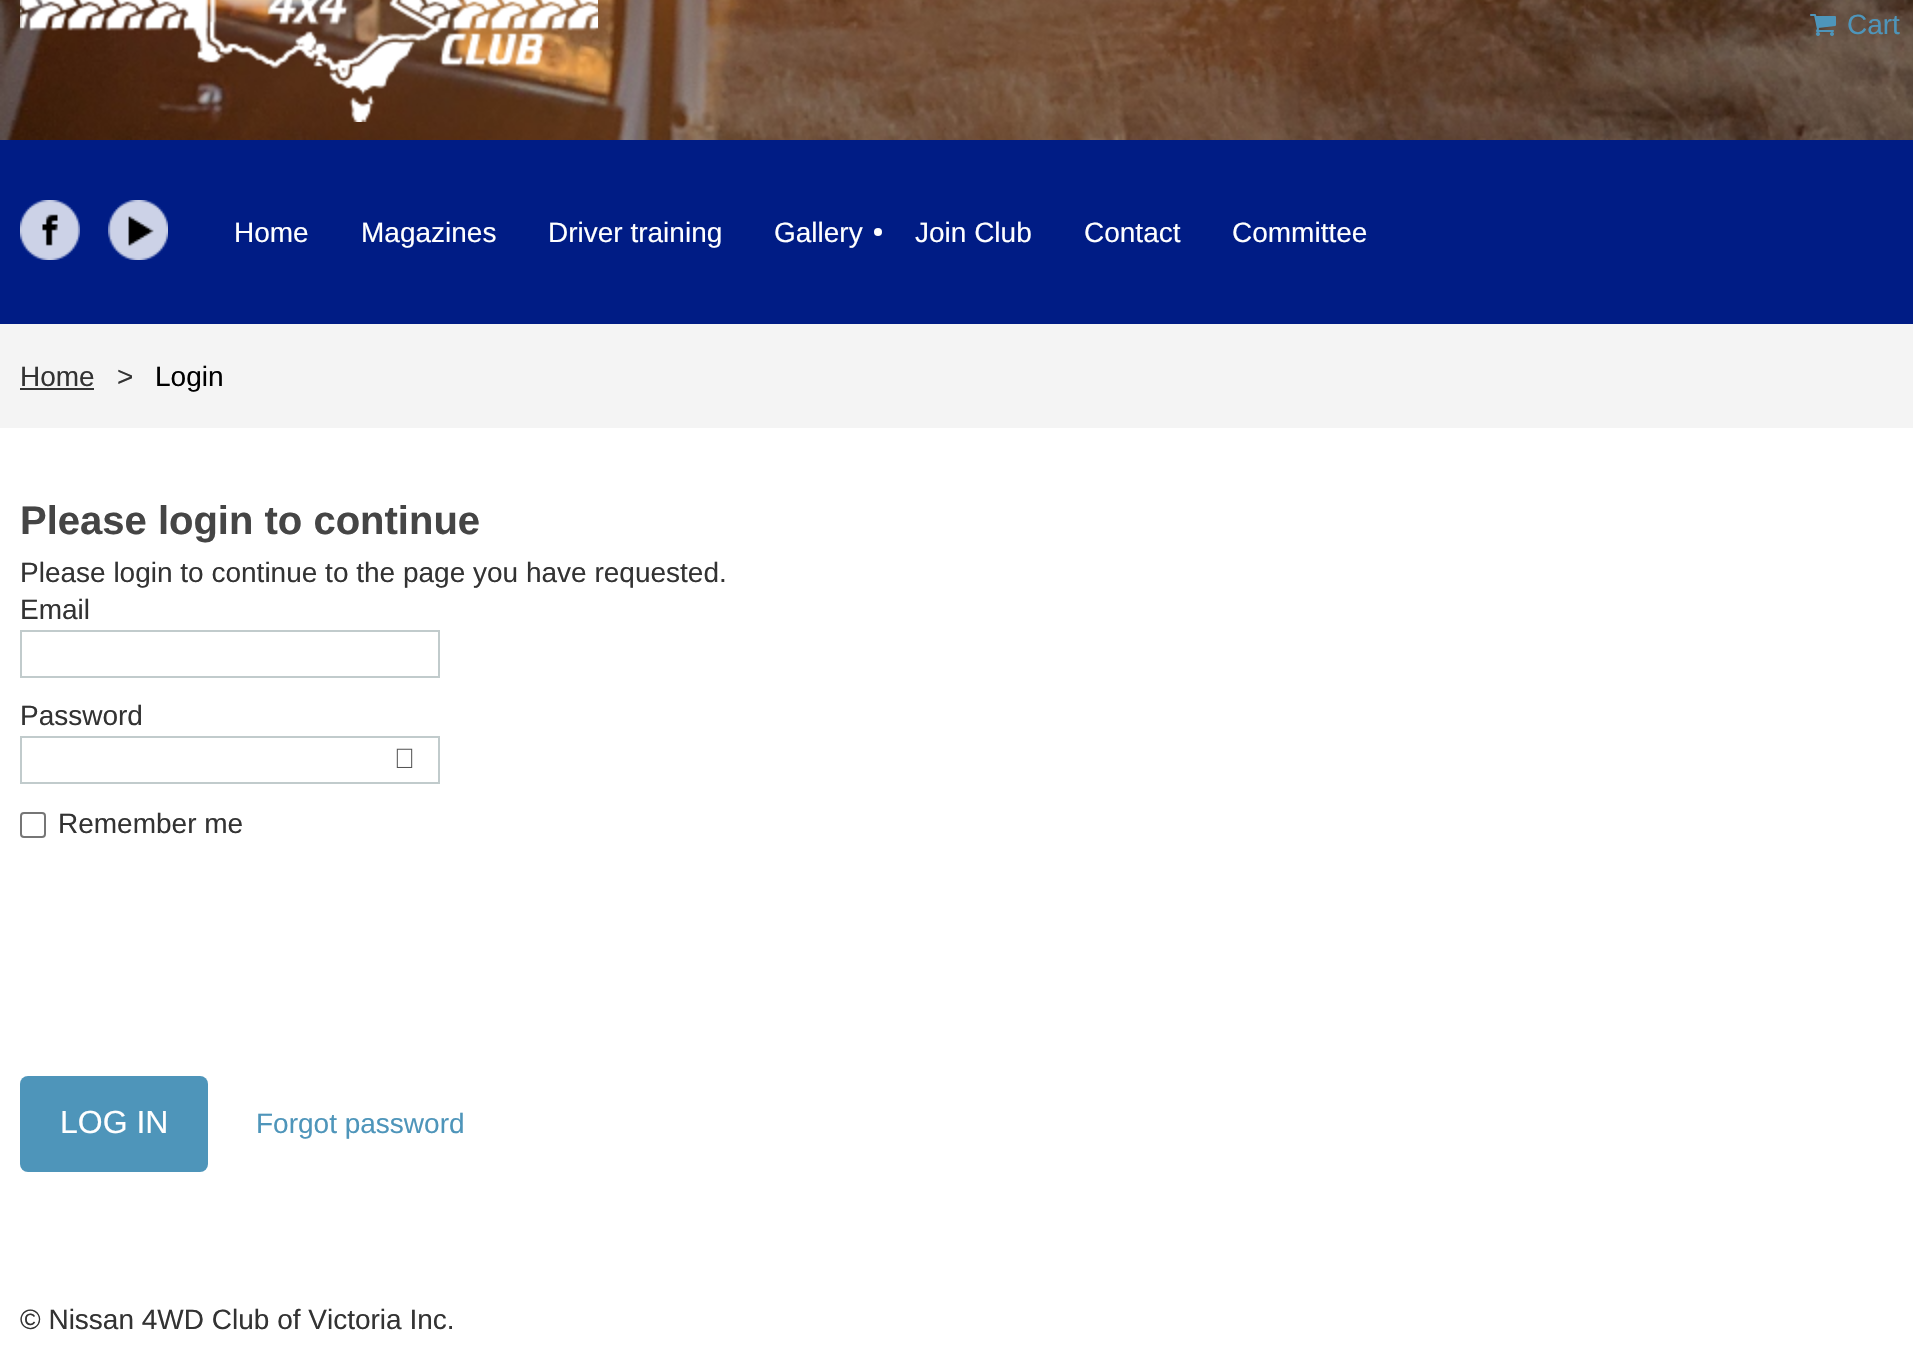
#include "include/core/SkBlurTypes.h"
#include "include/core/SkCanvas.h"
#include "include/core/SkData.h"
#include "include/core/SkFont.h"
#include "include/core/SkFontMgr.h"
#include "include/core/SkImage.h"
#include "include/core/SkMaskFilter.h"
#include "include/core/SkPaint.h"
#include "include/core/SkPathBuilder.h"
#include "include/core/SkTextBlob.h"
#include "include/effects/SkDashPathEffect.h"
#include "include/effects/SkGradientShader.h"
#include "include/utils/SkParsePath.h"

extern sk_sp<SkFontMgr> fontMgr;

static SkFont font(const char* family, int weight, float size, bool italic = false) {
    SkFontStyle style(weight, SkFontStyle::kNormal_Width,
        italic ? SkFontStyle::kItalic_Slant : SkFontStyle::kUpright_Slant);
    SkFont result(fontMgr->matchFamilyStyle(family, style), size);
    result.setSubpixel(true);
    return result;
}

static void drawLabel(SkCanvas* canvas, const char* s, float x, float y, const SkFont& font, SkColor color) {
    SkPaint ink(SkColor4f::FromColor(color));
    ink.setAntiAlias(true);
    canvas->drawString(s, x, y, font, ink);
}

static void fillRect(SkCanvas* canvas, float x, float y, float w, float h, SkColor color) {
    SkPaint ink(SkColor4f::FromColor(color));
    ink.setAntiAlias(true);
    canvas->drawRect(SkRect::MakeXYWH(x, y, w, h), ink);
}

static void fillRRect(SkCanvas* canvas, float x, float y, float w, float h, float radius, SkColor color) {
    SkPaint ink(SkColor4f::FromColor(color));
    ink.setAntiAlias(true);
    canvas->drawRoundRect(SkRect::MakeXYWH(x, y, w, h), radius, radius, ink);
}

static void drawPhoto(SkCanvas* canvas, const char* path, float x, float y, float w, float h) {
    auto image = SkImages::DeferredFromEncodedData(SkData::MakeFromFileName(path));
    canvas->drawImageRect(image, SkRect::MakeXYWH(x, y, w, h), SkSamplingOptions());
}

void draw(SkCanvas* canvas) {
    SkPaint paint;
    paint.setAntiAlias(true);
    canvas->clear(0xFFFFFFFF);
    drawPhoto(canvas, "assets/img1.png", 0, 0, 1913, 140);
    drawPhoto(canvas, "assets/img2.png", 20, 0, 578, 122);
    drawPhoto(canvas, "assets/img3.png", 1810, 14, 26, 22);
    SkFont font1 = font("Liberation Sans", 400, 28);
    drawLabel(canvas, "Cart", 1847, 34, font1, 0xFF4E95BA);
    fillRect(canvas, 0, 140, 1913, 184, 0xFF001C85);
    drawPhoto(canvas, "assets/img4.png", 20, 200, 60, 60);
    drawPhoto(canvas, "assets/img5.png", 108, 200, 60, 60);
    drawLabel(canvas, "Home", 234, 242, font1, 0xFFFFFFFF);
    drawLabel(canvas, "Magazines", 361, 242, font1, 0xFFFFFFFF);
    drawLabel(canvas, "Driver training", 548, 242, font1, 0xFFFFFFFF);
    drawLabel(canvas, "Gallery", 774, 242, font1, 0xFFFFFFFF);
    paint.setColor(0xFFFFFFFF);
    canvas->drawCircle(878, 232, 4, paint);
    drawLabel(canvas, "Join Club", 915, 242, font1, 0xFFFFFFFF);
    drawLabel(canvas, "Contact", 1084, 242, font1, 0xFFFFFFFF);
    drawLabel(canvas, "Committee", 1232, 242, font1, 0xFFFFFFFF);
    fillRect(canvas, 0, 324, 1913, 104, 0xFFF4F4F4);
    drawLabel(canvas, "Home", 20, 386, font1, 0xFF333333);
    fillRect(canvas, 20, 388, 74, 2, 0xFF333333);
    drawLabel(canvas, ">", 117, 386, font1, 0xFF333333);
    drawLabel(canvas, "Login", 155, 386, font1, 0xFF000000);
    SkFont font2 = font("Liberation Sans", 700, 40);
    drawLabel(canvas, "Please login to continue", 20, 534, font2, 0xFF454545);
    drawLabel(canvas, "Please login to continue to the page you have requested.", 20, 582, font1, 0xFF333333);
    drawLabel(canvas, "Email", 20, 619, font1, 0xFF333333);
    paint.setStroke(true);
    paint.setStrokeWidth(2);
    paint.setColor(0xFFC1CBCC);
    canvas->drawRect(SkRect::MakeXYWH(21, 631, 418, 46), paint);
    drawLabel(canvas, "Password", 20, 725, font1, 0xFF333333);
    canvas->drawRect(SkRect::MakeXYWH(21, 737, 418, 46), paint);
    drawPhoto(canvas, "assets/img6.png", 396, 748, 17, 20);
    paint.setColor(0xFF767676);
    canvas->drawRoundRect(SkRect::MakeXYWH(21, 813, 24, 24), 3, 3, paint);
    drawLabel(canvas, "Remember me", 58, 833, font1, 0xFF333333);
    fillRRect(canvas, 20, 1076, 188, 96, 8, 0xFF4E95BA);
    SkFont font3 = font("Liberation Sans", 400, 32);
    drawLabel(canvas, "LOG IN", 60, 1133, font3, 0xFFFFFFFF);
    drawLabel(canvas, "Forgot password", 256, 1133, font1, 0xFF4E95BA);
    drawLabel(canvas, "© Nissan 4WD Club of Victoria Inc.", 20, 1329, font1, 0xFF333333);
}
